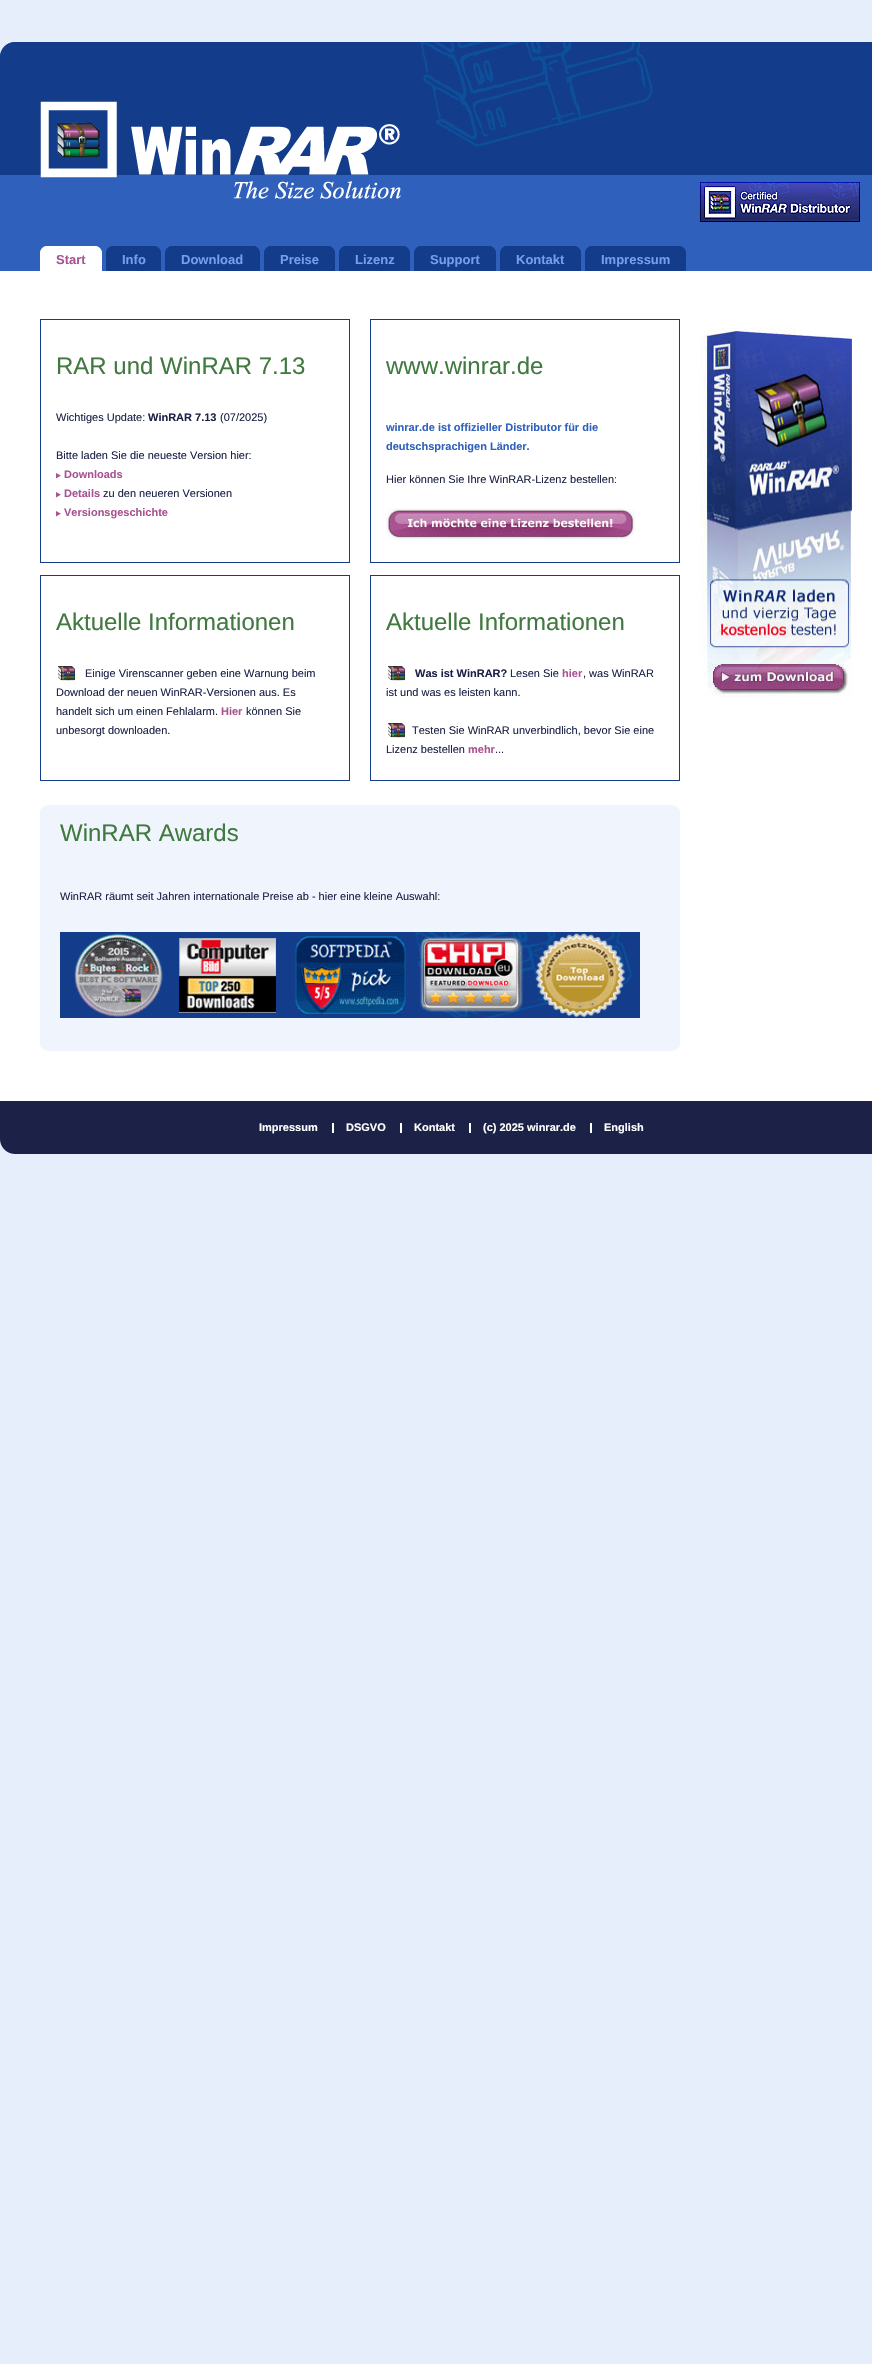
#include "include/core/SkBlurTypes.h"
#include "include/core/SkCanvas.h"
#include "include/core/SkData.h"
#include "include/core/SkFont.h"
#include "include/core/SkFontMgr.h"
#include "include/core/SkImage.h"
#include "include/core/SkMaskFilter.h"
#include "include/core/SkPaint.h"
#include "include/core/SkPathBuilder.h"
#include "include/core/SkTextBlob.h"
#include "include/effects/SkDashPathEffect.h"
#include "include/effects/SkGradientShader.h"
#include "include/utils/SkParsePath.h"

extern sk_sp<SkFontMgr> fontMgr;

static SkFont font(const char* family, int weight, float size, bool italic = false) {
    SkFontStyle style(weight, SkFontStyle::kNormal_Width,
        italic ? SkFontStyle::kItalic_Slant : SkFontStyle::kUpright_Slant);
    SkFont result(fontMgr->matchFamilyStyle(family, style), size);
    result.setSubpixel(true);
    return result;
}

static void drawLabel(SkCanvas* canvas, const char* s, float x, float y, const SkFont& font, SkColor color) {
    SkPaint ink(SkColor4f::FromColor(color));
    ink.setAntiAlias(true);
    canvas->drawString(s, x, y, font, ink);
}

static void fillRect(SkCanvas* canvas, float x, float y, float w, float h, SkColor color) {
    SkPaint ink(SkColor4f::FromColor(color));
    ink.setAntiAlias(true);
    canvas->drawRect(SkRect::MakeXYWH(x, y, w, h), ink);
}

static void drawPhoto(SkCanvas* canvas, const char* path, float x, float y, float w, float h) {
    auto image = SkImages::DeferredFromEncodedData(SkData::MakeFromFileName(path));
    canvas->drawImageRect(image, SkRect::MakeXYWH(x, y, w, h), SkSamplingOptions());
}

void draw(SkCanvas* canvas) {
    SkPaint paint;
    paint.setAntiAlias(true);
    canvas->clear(0xFFE6EEFC);
    fillRect(canvas, 0, 175, 872, 96, 0xFF2F60BC);
    drawPhoto(canvas, "assets/img1.png", 0, 42, 872, 133);
    drawPhoto(canvas, "assets/img2.png", 40, 101, 361, 98);
    drawPhoto(canvas, "assets/img3.png", 700, 182, 160, 40);
    fillRect(canvas, 40, 246, 62, 25, 0xFFFFFFFF);
    drawPhoto(canvas, "assets/img4.png", 40, 246, 6, 6);
    drawPhoto(canvas, "assets/img5.png", 96, 246, 6, 6);
    SkFont font1 = font("Liberation Sans", 700, 13);
    drawLabel(canvas, "Start", 56, 264, font1, 0xFFAA5392);
    fillRect(canvas, 106, 246, 55, 25, 0xFF133C8A);
    drawPhoto(canvas, "assets/img6.png", 106, 246, 5, 6);
    drawPhoto(canvas, "assets/img7.png", 156, 246, 5, 6);
    drawLabel(canvas, "Info", 122, 264, font1, 0xFF759FEE);
    fillRect(canvas, 165, 246, 95, 25, 0xFF133C8A);
    drawPhoto(canvas, "assets/img6.png", 165, 246, 5, 6);
    drawPhoto(canvas, "assets/img7.png", 255, 246, 5, 6);
    drawLabel(canvas, "Download", 181, 264, font1, 0xFF759FEE);
    fillRect(canvas, 264, 246, 71, 25, 0xFF133C8A);
    drawPhoto(canvas, "assets/img6.png", 264, 246, 5, 6);
    drawPhoto(canvas, "assets/img7.png", 330, 246, 5, 6);
    drawLabel(canvas, "Preise", 280, 264, font1, 0xFF759FEE);
    fillRect(canvas, 339, 246, 71, 25, 0xFF133C8A);
    drawPhoto(canvas, "assets/img6.png", 339, 246, 5, 6);
    drawPhoto(canvas, "assets/img7.png", 405, 246, 5, 6);
    drawLabel(canvas, "Lizenz", 355, 264, font1, 0xFF759FEE);
    fillRect(canvas, 414, 246, 82, 25, 0xFF133C8A);
    drawPhoto(canvas, "assets/img6.png", 414, 246, 5, 6);
    drawPhoto(canvas, "assets/img7.png", 491, 246, 5, 6);
    drawLabel(canvas, "Support", 430, 264, font1, 0xFF759FEE);
    fillRect(canvas, 500, 246, 81, 25, 0xFF133C8A);
    drawPhoto(canvas, "assets/img6.png", 500, 246, 5, 6);
    drawPhoto(canvas, "assets/img7.png", 576, 246, 5, 6);
    drawLabel(canvas, "Kontakt", 516, 264, font1, 0xFF759FEE);
    fillRect(canvas, 585, 246, 101, 25, 0xFF133C8A);
    drawPhoto(canvas, "assets/img6.png", 585, 246, 5, 6);
    drawPhoto(canvas, "assets/img7.png", 681, 246, 5, 6);
    drawLabel(canvas, "Impressum", 601, 264, font1, 0xFF759FEE);
    fillRect(canvas, 0, 271, 872, 830, 0xFFFFFFFF);
    drawPhoto(canvas, "assets/img8.png", 40, 319, 640, 244);
    drawPhoto(canvas, "assets/img9.png", 41, 319, 638, 1);
    drawPhoto(canvas, "assets/img9.png", 41, 562, 638, 1);
    SkFont font2 = font("Liberation Sans", 400, 24);
    drawLabel(canvas, "RAR und WinRAR 7.13", 56, 374, font2, 0xFF417940);
    SkFont font3 = font("Liberation Sans", 400, 11);
    drawLabel(canvas, "Wichtiges Update:", 56, 421, font3, 0xFF1C2247);
    SkFont font4 = font("Liberation Sans", 700, 11);
    drawLabel(canvas, "WinRAR 7.13", 148, 421, font4, 0xFF1C2247);
    drawLabel(canvas, "(07/2025)", 220, 421, font3, 0xFF1C2247);
    drawLabel(canvas, "Bitte laden Sie die neueste Version hier:", 56, 459, font3, 0xFF1C2247);
    drawPhoto(canvas, "assets/img10.png", 56, 473, 5, 6);
    drawLabel(canvas, "Downloads", 64, 478, font4, 0xFFAA5392);
    drawPhoto(canvas, "assets/img10.png", 56, 492, 5, 6);
    drawLabel(canvas, "Details", 64, 497, font4, 0xFFAA5392);
    drawLabel(canvas, "zu den neueren Versionen", 103, 497, font3, 0xFF1C2247);
    drawPhoto(canvas, "assets/img10.png", 56, 511, 5, 6);
    drawLabel(canvas, "Versionsgeschichte", 64, 516, font4, 0xFFAA5392);
    drawLabel(canvas, "www.winrar.de", 386, 374, font2, 0xFF417940);
    drawLabel(canvas, "winrar.de ist offizieller Distributor für die", 386, 431, font4, 0xFF2F60BC);
    drawLabel(canvas, "deutschsprachigen Länder.", 386, 450, font4, 0xFF2F60BC);
    drawLabel(canvas, "Hier können Sie Ihre WinRAR-Lizenz bestellen:", 386, 483, font3, 0xFF1C2247);
    drawPhoto(canvas, "assets/img11.png", 386, 508, 249, 32);
    drawPhoto(canvas, "assets/img12.png", 40, 575, 640, 206);
    drawPhoto(canvas, "assets/img9.png", 41, 575, 638, 1);
    drawPhoto(canvas, "assets/img9.png", 41, 780, 638, 1);
    drawLabel(canvas, "Aktuelle Informationen", 56, 630, font2, 0xFF417940);
    drawPhoto(canvas, "assets/img13.png", 58, 666, 18, 15);
    drawLabel(canvas, "Einige Virenscanner geben eine Warnung beim", 85, 677, font3, 0xFF1C2247);
    drawLabel(canvas, "Download der neuen WinRAR-Versionen aus. Es", 56, 696, font3, 0xFF1C2247);
    drawLabel(canvas, "handelt sich um einen Fehlalarm.", 56, 715, font3, 0xFF1C2247);
    drawLabel(canvas, "Hier", 221, 715, font4, 0xFFAA5392);
    drawLabel(canvas, "können Sie", 246, 715, font3, 0xFF1C2247);
    drawLabel(canvas, "unbesorgt downloaden.", 56, 734, font3, 0xFF1C2247);
    drawLabel(canvas, "Aktuelle Informationen", 386, 630, font2, 0xFF417940);
    drawPhoto(canvas, "assets/img13.png", 388, 666, 18, 15);
    drawLabel(canvas, "Was ist WinRAR?", 415, 677, font4, 0xFF1C2247);
    drawLabel(canvas, "Lesen Sie", 510, 677, font3, 0xFF1C2247);
    drawLabel(canvas, "hier", 562, 677, font4, 0xFFAA5392);
    drawLabel(canvas, ", was WinRAR", 583, 677, font3, 0xFF1C2247);
    drawLabel(canvas, "ist und was es leisten kann.", 386, 696, font3, 0xFF1C2247);
    drawPhoto(canvas, "assets/img13.png", 388, 723, 18, 15);
    drawLabel(canvas, "Testen Sie WinRAR unverbindlich, bevor Sie eine", 412, 734, font3, 0xFF1C2247);
    drawLabel(canvas, "Lizenz bestellen", 386, 753, font3, 0xFF1C2247);
    drawLabel(canvas, "mehr", 468, 753, font4, 0xFFAA5392);
    drawLabel(canvas, "...", 495, 753, font3, 0xFF1C2247);
    fillRect(canvas, 40, 811, 640, 234, 0xFFF0F5FD);
    drawPhoto(canvas, "assets/img14.png", 40, 805, 640, 6);
    drawPhoto(canvas, "assets/img15.png", 40, 1045, 640, 6);
    drawLabel(canvas, "WinRAR Awards", 60, 841, font2, 0xFF417940);
    drawLabel(canvas, "WinRAR räumt seit Jahren internationale Preise ab - hier eine kleine Auswahl:", 60, 900, font3, 0xFF1C2247);
    drawPhoto(canvas, "assets/img16.png", 60, 932, 580, 86);
    drawPhoto(canvas, "assets/img17.png", 700, 327, 152, 370);
    fillRect(canvas, 0, 1101, 872, 53, 0xFF1C2247);
    drawPhoto(canvas, "assets/img18.png", 0, 1139, 14, 15);
    drawLabel(canvas, "Impressum", 259, 1131, font4, 0xFFFFFFFF);
    drawLabel(canvas, "DSGVO", 346, 1131, font4, 0xFFFFFFFF);
    fillRect(canvas, 332, 1123, 2, 10, 0xFFFFFFFF);
    drawLabel(canvas, "Kontakt", 414, 1131, font4, 0xFFFFFFFF);
    fillRect(canvas, 400, 1123, 2, 10, 0xFFFFFFFF);
    drawLabel(canvas, "(c) 2025 winrar.de", 483, 1131, font4, 0xFFFFFFFF);
    fillRect(canvas, 469, 1123, 2, 10, 0xFFFFFFFF);
    drawLabel(canvas, "English", 604, 1131, font4, 0xFFFFFFFF);
    fillRect(canvas, 590, 1123, 2, 10, 0xFFFFFFFF);
}
